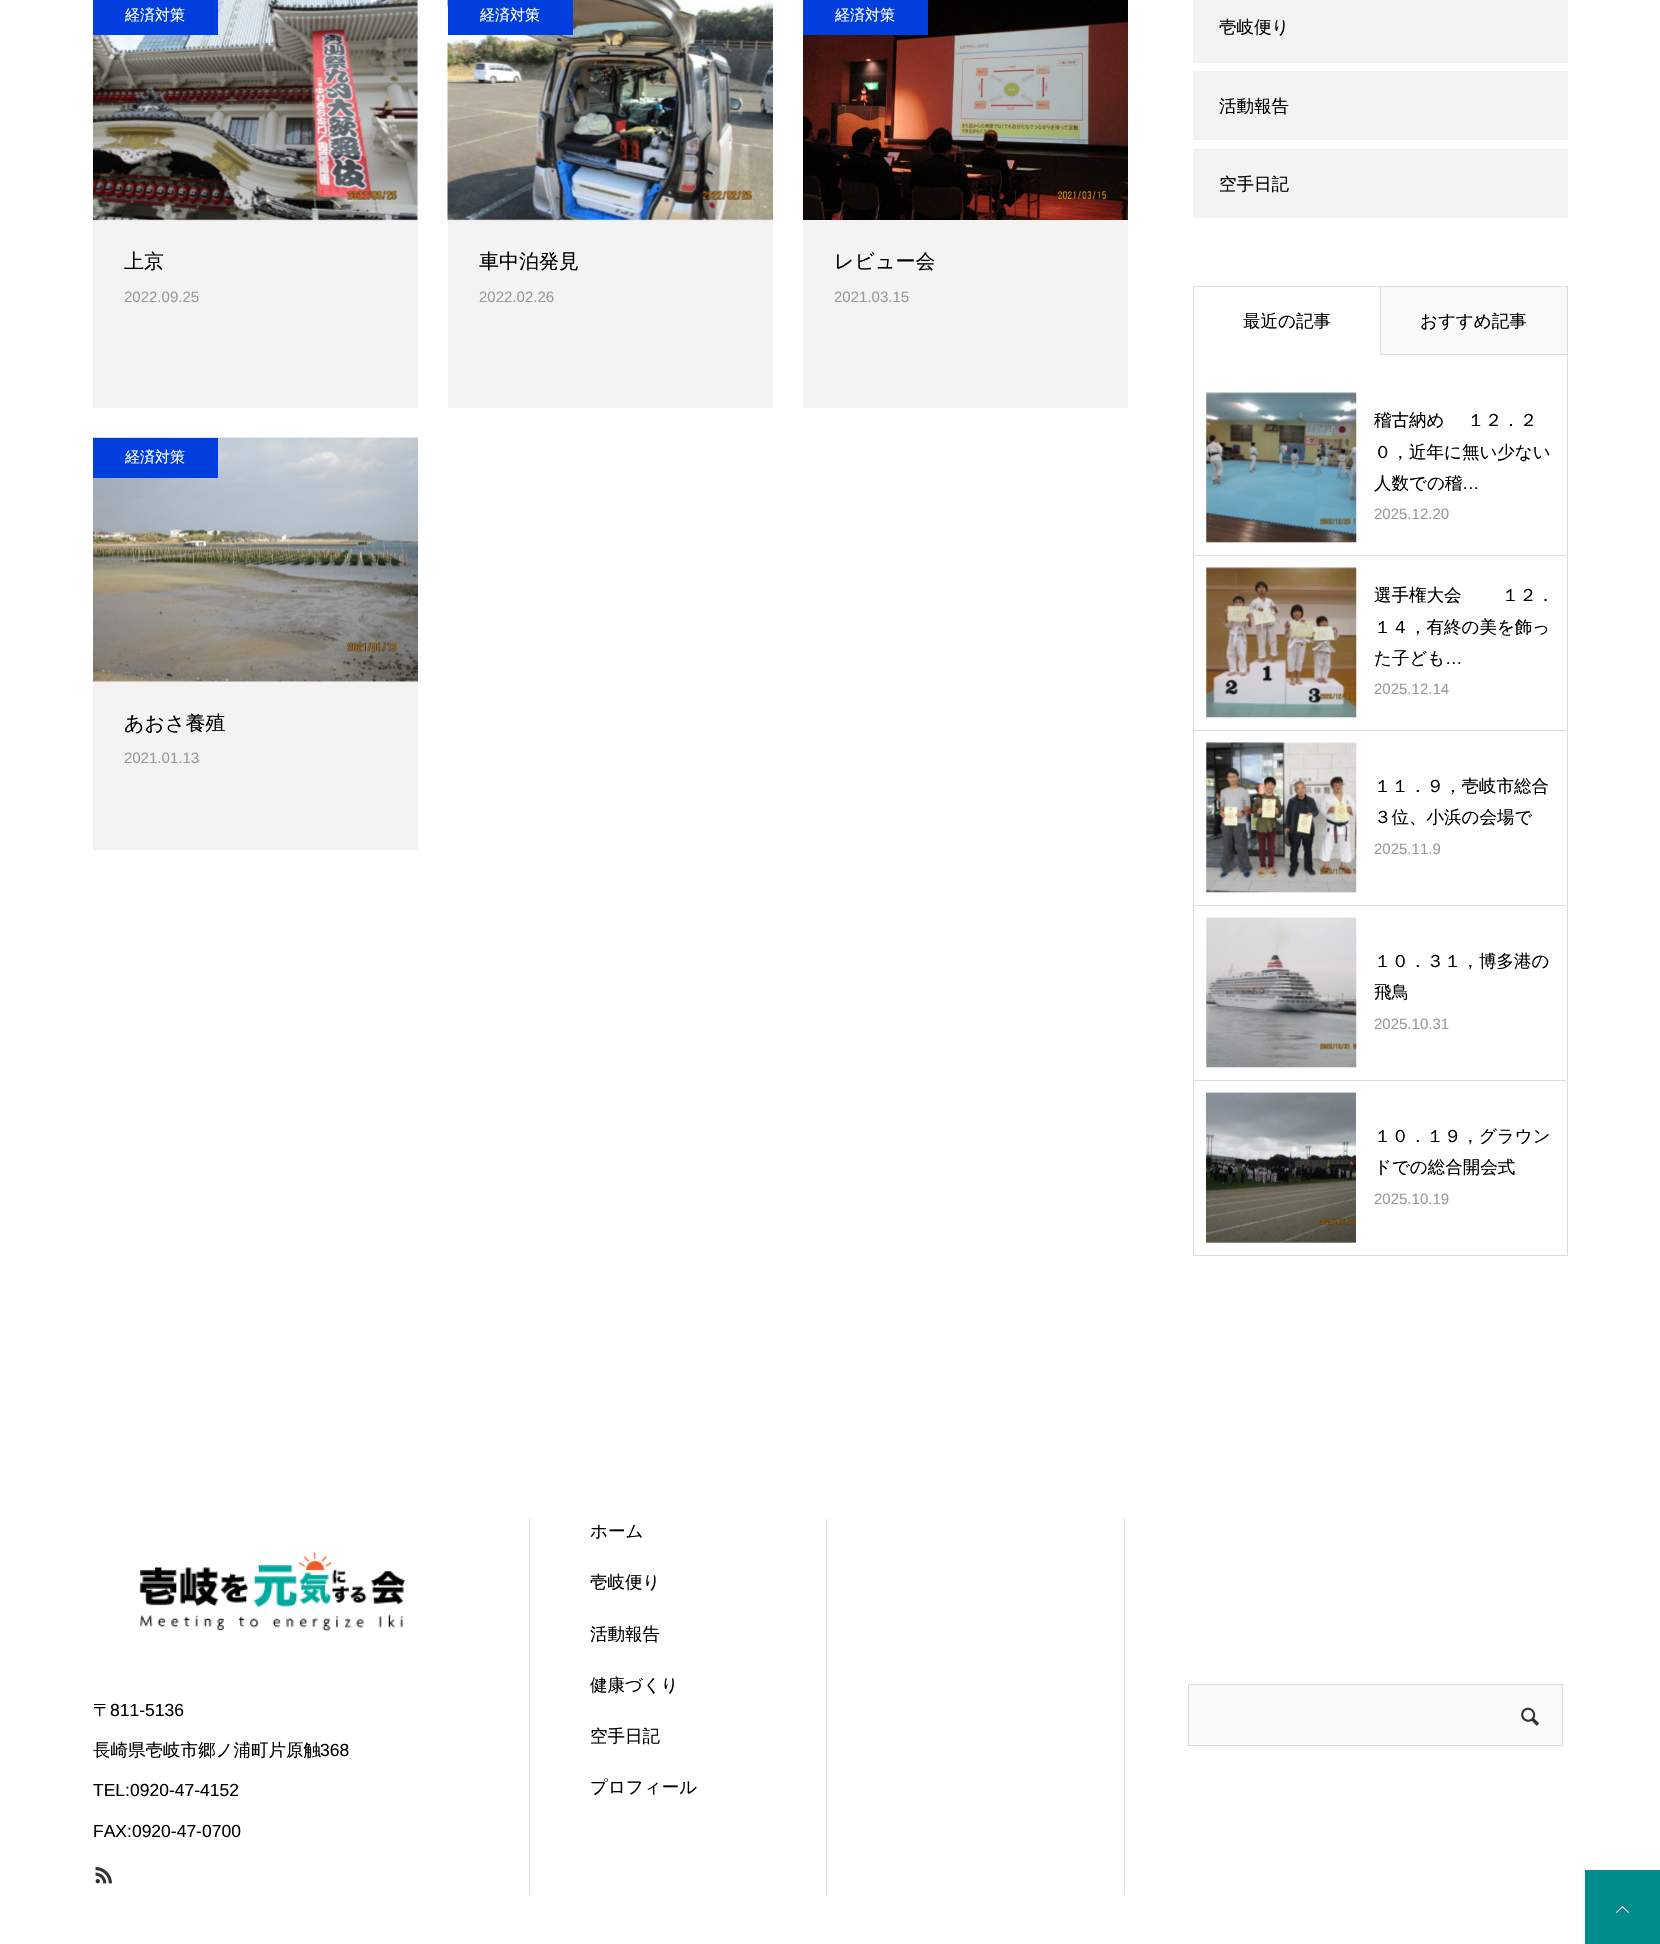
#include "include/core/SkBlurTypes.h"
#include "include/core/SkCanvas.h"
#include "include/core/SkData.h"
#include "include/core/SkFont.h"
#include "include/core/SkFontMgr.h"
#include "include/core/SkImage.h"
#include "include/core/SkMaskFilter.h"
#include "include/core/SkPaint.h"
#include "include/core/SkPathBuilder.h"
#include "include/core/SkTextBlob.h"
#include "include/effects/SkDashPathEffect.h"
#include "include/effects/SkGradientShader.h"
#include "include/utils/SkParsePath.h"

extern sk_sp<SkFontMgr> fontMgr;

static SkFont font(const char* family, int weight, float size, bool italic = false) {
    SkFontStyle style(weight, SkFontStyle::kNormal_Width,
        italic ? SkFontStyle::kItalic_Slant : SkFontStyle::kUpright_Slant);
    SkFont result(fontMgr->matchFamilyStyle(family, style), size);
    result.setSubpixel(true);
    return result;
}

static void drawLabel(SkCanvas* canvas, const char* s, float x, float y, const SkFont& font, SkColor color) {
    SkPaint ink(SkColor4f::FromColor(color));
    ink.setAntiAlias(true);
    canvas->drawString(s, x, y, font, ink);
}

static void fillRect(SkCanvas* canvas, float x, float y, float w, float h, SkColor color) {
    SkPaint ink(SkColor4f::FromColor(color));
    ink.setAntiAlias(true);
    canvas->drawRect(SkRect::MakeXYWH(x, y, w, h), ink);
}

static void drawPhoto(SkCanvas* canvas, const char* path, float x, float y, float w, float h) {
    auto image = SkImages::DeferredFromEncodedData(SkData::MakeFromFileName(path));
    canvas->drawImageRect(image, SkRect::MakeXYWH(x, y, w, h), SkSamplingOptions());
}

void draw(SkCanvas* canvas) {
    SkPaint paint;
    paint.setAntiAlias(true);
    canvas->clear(0xFFFFFFFF);
    fillRect(canvas, 93, 0, 325, 408, 0xFFF3F3F3);
    drawPhoto(canvas, "assets/img1.png", 93, 0, 325, 221);
    fillRect(canvas, 93, 0, 125, 35, 0xFF003EDD);
    SkFont font1 = font("WenQuanYi Zen Hei", 500, 15);
    drawLabel(canvas, "経済対策", 125, 20, font1, 0xFFFFFFFF);
    SkFont font2 = font("WenQuanYi Zen Hei", 500, 20);
    drawLabel(canvas, "上京", 124, 268, font2, 0xFF000000);
    SkFont font3 = font("Liberation Sans", 400, 15);
    drawLabel(canvas, "2022.09.25", 124, 302, font3, 0xFF999999);
    fillRect(canvas, 448, 219, 325, 189, 0xFFF3F3F3);
    drawPhoto(canvas, "assets/img2.png", 447, 0, 326, 221);
    fillRect(canvas, 448, 0, 125, 35, 0xFF003EDD);
    drawLabel(canvas, "経済対策", 480, 20, font1, 0xFFFFFFFF);
    drawLabel(canvas, "車中泊発見", 479, 268, font2, 0xFF000000);
    drawLabel(canvas, "2022.02.26", 479, 302, font3, 0xFF999999);
    fillRect(canvas, 803, 220, 325, 188, 0xFFF3F3F3);
    drawPhoto(canvas, "assets/img3.png", 803, 0, 325, 220);
    fillRect(canvas, 803, 0, 125, 35, 0xFF003EDD);
    drawLabel(canvas, "経済対策", 835, 20, font1, 0xFFFFFFFF);
    drawLabel(canvas, "レビュー会", 834, 268, font2, 0xFF000000);
    drawLabel(canvas, "2021.03.15", 834, 302, font3, 0xFF999999);
    fillRect(canvas, 93, 680, 325, 170, 0xFFF3F3F3);
    drawPhoto(canvas, "assets/img4.png", 93, 437, 325, 245);
    fillRect(canvas, 93, 438, 125, 40, 0xFF003EDD);
    drawLabel(canvas, "経済対策", 125, 462, font1, 0xFFFFFFFF);
    drawLabel(canvas, "あおさ養殖", 124, 730, font2, 0xFF000000);
    drawLabel(canvas, "2021.01.13", 124, 763, font3, 0xFF999999);
    fillRect(canvas, 1193, 0, 375, 63, 0xFFF3F3F3);
    SkFont font4 = font("WenQuanYi Zen Hei", 500, 17.5f);
    drawLabel(canvas, "壱岐便り", 1219, 33, font4, 0xFF000000);
    fillRect(canvas, 1193, 71, 375, 69, 0xFFF3F3F3);
    drawLabel(canvas, "活動報告", 1219, 112, font4, 0xFF000000);
    fillRect(canvas, 1193, 149, 375, 69, 0xFFF3F3F3);
    drawLabel(canvas, "空手日記", 1219, 190, font4, 0xFF000000);
    paint.setStroke(true);
    paint.setStrokeWidth(1);
    paint.setColor(0xFFDDDDDD);
    canvas->drawRect(SkRect::MakeXYWH(1193.5f, 354.5f, 374, 901), paint);
    fillRect(canvas, 1194, 354, 186, 1, 0xFFFFFFFF);
    fillRect(canvas, 1193, 286, 187, 1, 0xFFDDDDDD);
    fillRect(canvas, 1193, 286, 1, 69, 0xFFDDDDDD);
    drawLabel(canvas, "最近の記事", 1243, 327, font4, 0xFF000000);
    paint.setStroke(false);
    paint.setColor(0xFFF9F9F9);
    canvas->drawRect(SkRect::MakeXYWH(1380.5f, 286.5f, 187, 68), paint);
    paint.setStroke(true);
    paint.setColor(0xFFDDDDDD);
    canvas->drawRect(SkRect::MakeXYWH(1380.5f, 286.5f, 187, 68), paint);
    drawLabel(canvas, "おすすめ記事", 1420, 327, font4, 0xFF000000);
    fillRect(canvas, 1194, 555, 372, 1, 0xFFDDDDDD);
    drawPhoto(canvas, "assets/img5.png", 1206, 392, 151, 151);
    drawLabel(canvas, "稽古納め　 １２．２", 1374, 426, font4, 0xFF000000);
    drawLabel(canvas, "０，近年に無い少ない", 1374, 458, font4, 0xFF000000);
    drawLabel(canvas, "人数での稽", 1374, 489, font4, 0xFF000000);
    SkFont font5 = font("Liberation Sans", 400, 17.5f);
    drawLabel(canvas, "…", 1462, 489, font5, 0xFF000000);
    drawLabel(canvas, "2025.12.20", 1374, 519, font3, 0xFF999999);
    fillRect(canvas, 1194, 730, 372, 1, 0xFFDDDDDD);
    drawPhoto(canvas, "assets/img6.png", 1206, 567, 151, 151);
    drawLabel(canvas, "選手権大会　　 １２．", 1374, 601, font4, 0xFF000000);
    drawLabel(canvas, "１４，有終の美を飾っ", 1374, 633, font4, 0xFF000000);
    drawLabel(canvas, "た子ども", 1374, 664, font4, 0xFF000000);
    drawLabel(canvas, "…", 1445, 664, font5, 0xFF000000);
    drawLabel(canvas, "2025.12.14", 1374, 694, font3, 0xFF999999);
    fillRect(canvas, 1194, 905, 372, 1, 0xFFDDDDDD);
    drawPhoto(canvas, "assets/img7.png", 1206, 742, 151, 151);
    drawLabel(canvas, "１１．９，壱岐市総合", 1374, 792, font4, 0xFF000000);
    drawLabel(canvas, "３位、小浜の会場で", 1374, 823, font4, 0xFF000000);
    drawLabel(canvas, "2025.11.9", 1374, 854, font3, 0xFF999999);
    fillRect(canvas, 1194, 1080, 372, 1, 0xFFDDDDDD);
    drawPhoto(canvas, "assets/img8.png", 1206, 917, 151, 151);
    drawLabel(canvas, "１０．３１，博多港の", 1374, 967, font4, 0xFF000000);
    drawLabel(canvas, "飛鳥", 1374, 998, font4, 0xFF000000);
    drawLabel(canvas, "2025.10.31", 1374, 1029, font3, 0xFF999999);
    drawPhoto(canvas, "assets/img9.png", 1206, 1092, 150, 151);
    drawLabel(canvas, "１０．１９，グラウン", 1374, 1142, font4, 0xFF000000);
    drawLabel(canvas, "ドでの総合開会式", 1374, 1173, font4, 0xFF000000);
    drawLabel(canvas, "2025.10.19", 1374, 1204, font3, 0xFF999999);
    fillRect(canvas, 529, 1519, 1, 376, 0xFFDDDDDD);
    drawPhoto(canvas, "assets/img10.png", 139, 1552, 267, 80);
    drawLabel(canvas, "〒", 93, 1716, font4, 0xFF000000);
    drawLabel(canvas, "811-5136", 110, 1716, font5, 0xFF000000);
    drawLabel(canvas, "長崎県壱岐市郷ノ浦町片原触", 93, 1756, font4, 0xFF000000);
    drawLabel(canvas, "368", 320, 1756, font5, 0xFF000000);
    drawLabel(canvas, "TEL:0920-47-4152", 93, 1796, font5, 0xFF000000);
    drawLabel(canvas, "FAX:0920-47-0700", 93, 1837, font5, 0xFF000000);
    drawPhoto(canvas, "assets/img11.png", 95, 1867, 17, 17);
    fillRect(canvas, 826, 1519, 1, 376, 0xFFDDDDDD);
    drawLabel(canvas, "ホーム", 590, 1537, font4, 0xFF000000);
    drawLabel(canvas, "壱岐便り", 590, 1588, font4, 0xFF000000);
    drawLabel(canvas, "活動報告", 590, 1640, font4, 0xFF000000);
    drawLabel(canvas, "健康づくり", 590, 1691, font4, 0xFF000000);
    drawLabel(canvas, "空手日記", 590, 1742, font4, 0xFF000000);
    drawLabel(canvas, "プロフィール", 590, 1793, font4, 0xFF000000);
    fillRect(canvas, 1124, 1519, 1, 376, 0xFFDDDDDD);
    paint.setStroke(false);
    paint.setColor(0xFFFBFBFB);
    canvas->drawRect(SkRect::MakeXYWH(1188.5f, 1684.5f, 374, 61), paint);
    paint.setStroke(true);
    paint.setColor(0xFFDDDDDD);
    canvas->drawRect(SkRect::MakeXYWH(1188.5f, 1684.5f, 374, 61), paint);
    drawPhoto(canvas, "assets/img12.png", 1521, 1707, 18, 19);
    fillRect(canvas, 1585, 1870, 75, 74, 0xFF008C8D);
    drawPhoto(canvas, "assets/img13.png", 1616, 1906, 13, 7);
}
